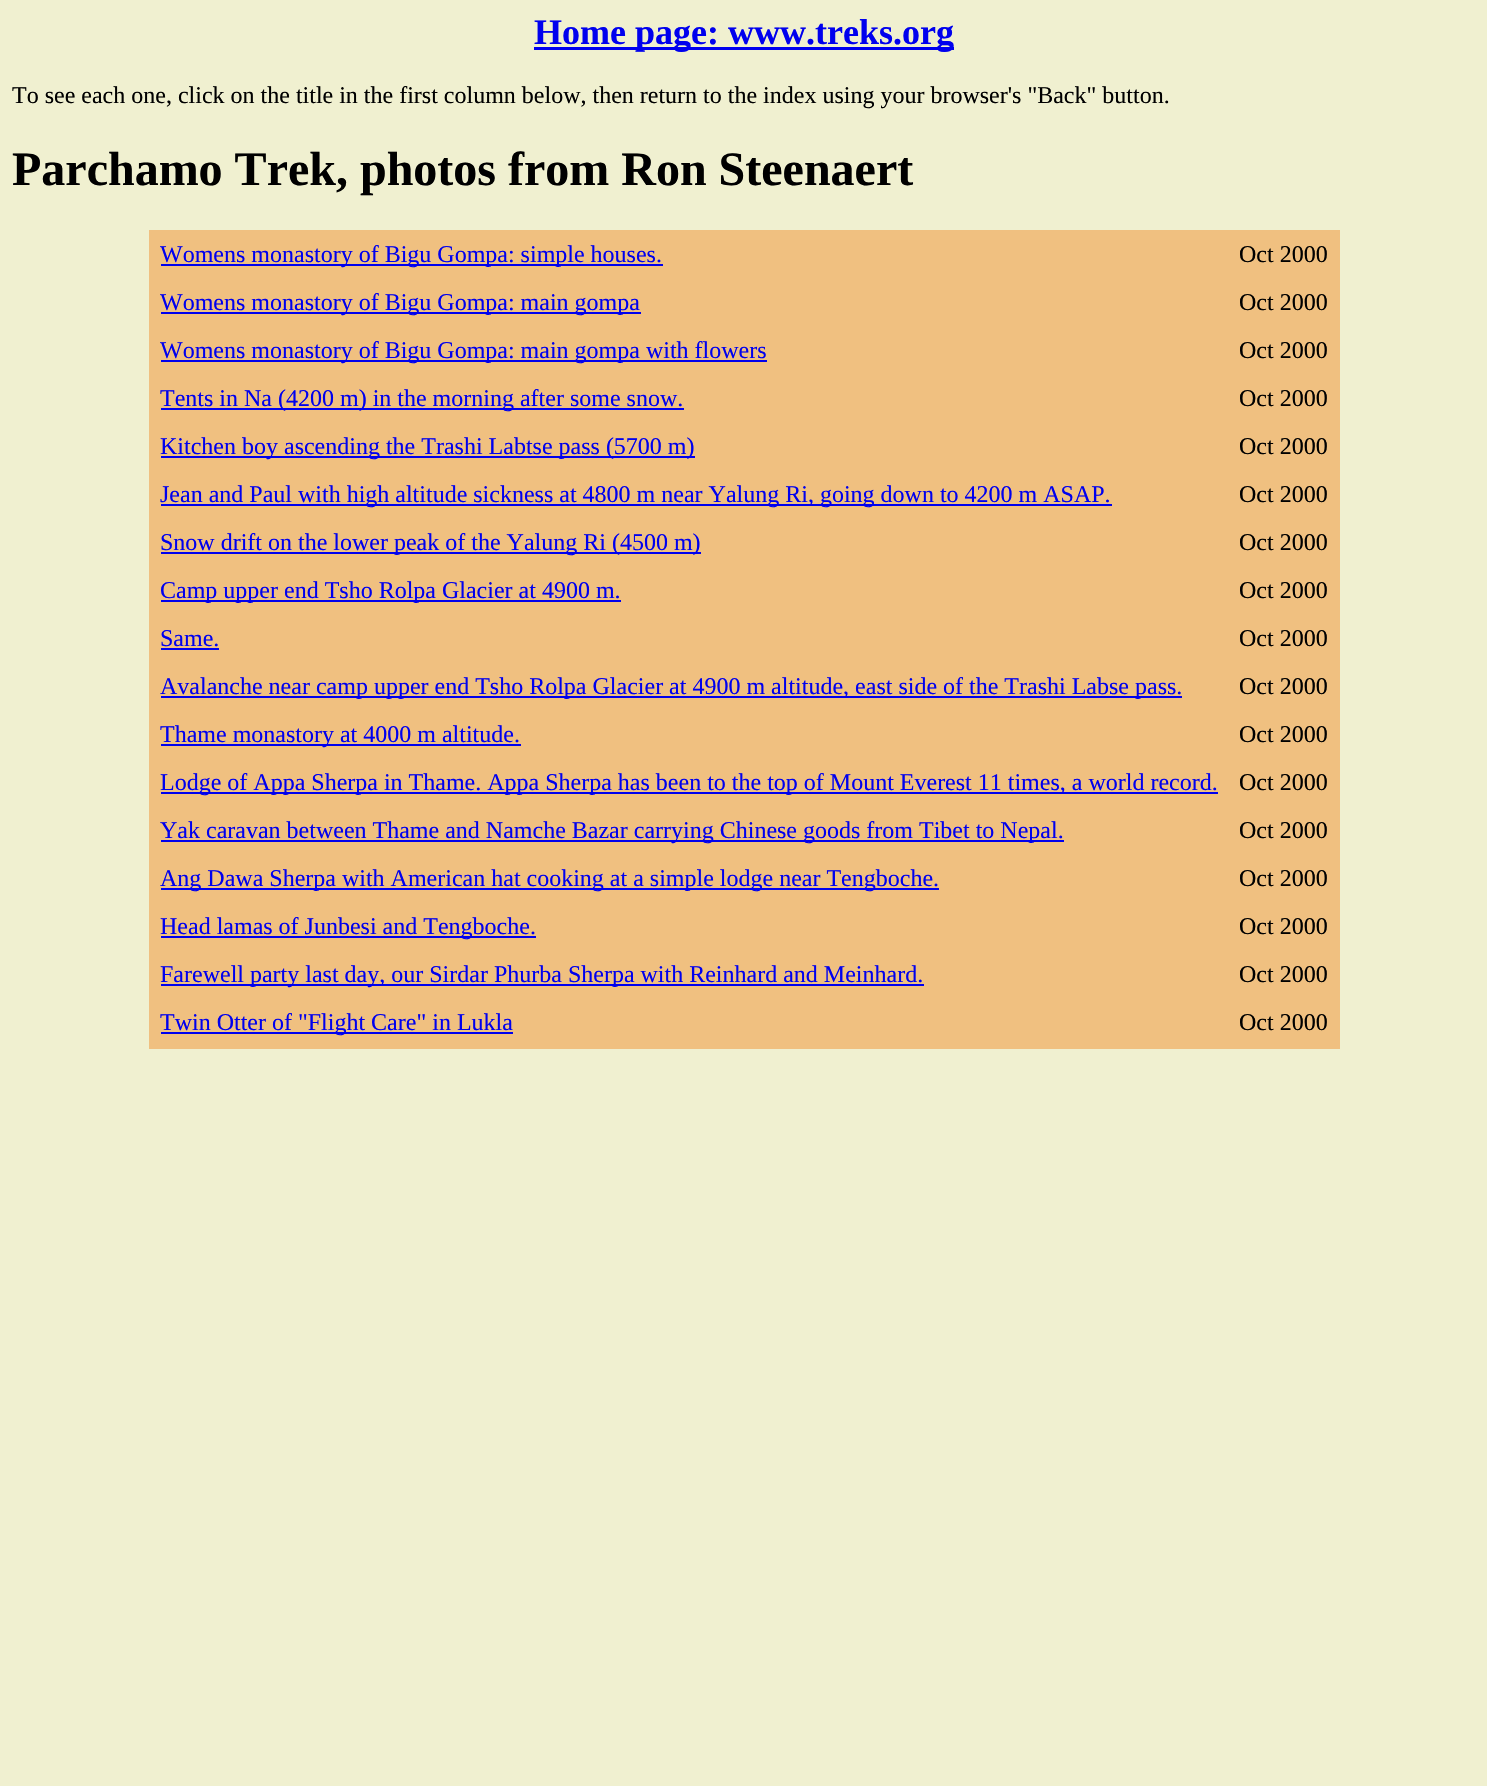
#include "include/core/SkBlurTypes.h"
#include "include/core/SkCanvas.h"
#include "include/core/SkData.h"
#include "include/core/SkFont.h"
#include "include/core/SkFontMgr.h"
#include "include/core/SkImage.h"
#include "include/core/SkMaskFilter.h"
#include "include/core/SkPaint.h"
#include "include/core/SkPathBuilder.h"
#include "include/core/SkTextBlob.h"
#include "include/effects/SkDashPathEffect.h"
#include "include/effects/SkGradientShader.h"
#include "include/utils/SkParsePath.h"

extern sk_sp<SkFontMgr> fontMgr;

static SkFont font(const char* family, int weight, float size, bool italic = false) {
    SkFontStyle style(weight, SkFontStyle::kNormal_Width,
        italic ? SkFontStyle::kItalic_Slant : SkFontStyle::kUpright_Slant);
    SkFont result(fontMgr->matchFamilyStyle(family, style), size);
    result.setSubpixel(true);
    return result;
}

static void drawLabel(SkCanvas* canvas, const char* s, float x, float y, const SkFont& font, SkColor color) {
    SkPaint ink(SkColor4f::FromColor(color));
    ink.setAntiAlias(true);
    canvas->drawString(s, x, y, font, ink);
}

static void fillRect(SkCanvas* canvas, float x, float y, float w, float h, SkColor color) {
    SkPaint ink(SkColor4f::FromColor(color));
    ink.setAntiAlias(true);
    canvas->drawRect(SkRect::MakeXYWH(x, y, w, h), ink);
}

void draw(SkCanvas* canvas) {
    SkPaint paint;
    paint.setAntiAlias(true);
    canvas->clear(0xFFF0F0D0);
    fillRect(canvas, 534, 47, 420, 3, 0xFF0000EE);
    SkFont font1 = font("Liberation Serif", 700, 36);
    drawLabel(canvas, "Home page: www.treks.org", 534, 44, font1, 0xFF0000EE);
    SkFont font2 = font("Liberation Serif", 400, 24);
    drawLabel(canvas, "To see each one, click on the title in the first column below, then return to the index using your browser's \"Back\" button.", 12, 103, font2, 0xFF000000);
    SkFont font3 = font("Liberation Serif", 700, 48);
    drawLabel(canvas, "Parchamo Trek, photos from Ron Steenaert", 12, 185, font3, 0xFF000000);
    fillRect(canvas, 149, 230, 1191, 819, 0xFFF0C080);
    fillRect(canvas, 161, 264, 502, 2, 0xFF0000EE);
    drawLabel(canvas, "Womens monastory of Bigu Gompa: simple houses.", 160, 262, font2, 0xFF0000EE);
    drawLabel(canvas, "Oct 2000", 1239, 262, font2, 0xFF000000);
    fillRect(canvas, 161, 312, 480, 2, 0xFF0000EE);
    drawLabel(canvas, "Womens monastory of Bigu Gompa: main gompa", 160, 310, font2, 0xFF0000EE);
    drawLabel(canvas, "Oct 2000", 1239, 310, font2, 0xFF000000);
    fillRect(canvas, 161, 360, 606, 2, 0xFF0000EE);
    drawLabel(canvas, "Womens monastory of Bigu Gompa: main gompa with flowers", 160, 358, font2, 0xFF0000EE);
    drawLabel(canvas, "Oct 2000", 1239, 358, font2, 0xFF000000);
    fillRect(canvas, 161, 408, 523, 2, 0xFF0000EE);
    drawLabel(canvas, "Tents in Na (4200 m) in the morning after some snow.", 160, 406, font2, 0xFF0000EE);
    drawLabel(canvas, "Oct 2000", 1239, 406, font2, 0xFF000000);
    fillRect(canvas, 161, 456, 534, 2, 0xFF0000EE);
    drawLabel(canvas, "Kitchen boy ascending the Trashi Labtse pass (5700 m)", 160, 454, font2, 0xFF0000EE);
    drawLabel(canvas, "Oct 2000", 1239, 454, font2, 0xFF000000);
    fillRect(canvas, 161, 504, 951, 2, 0xFF0000EE);
    drawLabel(canvas, "Jean and Paul with high altitude sickness at 4800 m near Yalung Ri, going down to 4200 m ASAP.", 160, 502, font2, 0xFF0000EE);
    drawLabel(canvas, "Oct 2000", 1239, 502, font2, 0xFF000000);
    fillRect(canvas, 161, 552, 540, 2, 0xFF0000EE);
    drawLabel(canvas, "Snow drift on the lower peak of the Yalung Ri (4500 m)", 160, 550, font2, 0xFF0000EE);
    drawLabel(canvas, "Oct 2000", 1239, 550, font2, 0xFF000000);
    fillRect(canvas, 161, 600, 460, 2, 0xFF0000EE);
    drawLabel(canvas, "Camp upper end Tsho Rolpa Glacier at 4900 m.", 160, 598, font2, 0xFF0000EE);
    drawLabel(canvas, "Oct 2000", 1239, 598, font2, 0xFF000000);
    drawLabel(canvas, "Same.", 160, 646, font2, 0xFF0000EE);
    fillRect(canvas, 161, 648, 58, 2, 0xFF0000EE);
    drawLabel(canvas, "Oct 2000", 1239, 646, font2, 0xFF000000);
    fillRect(canvas, 161, 696, 1021, 2, 0xFF0000EE);
    drawLabel(canvas, "Avalanche near camp upper end Tsho Rolpa Glacier at 4900 m altitude, east side of the Trashi Labse pass.", 160, 694, font2, 0xFF0000EE);
    drawLabel(canvas, "Oct 2000", 1239, 694, font2, 0xFF000000);
    fillRect(canvas, 161, 744, 360, 2, 0xFF0000EE);
    drawLabel(canvas, "Thame monastory at 4000 m altitude.", 160, 742, font2, 0xFF0000EE);
    drawLabel(canvas, "Oct 2000", 1239, 742, font2, 0xFF000000);
    fillRect(canvas, 161, 792, 1057, 2, 0xFF0000EE);
    drawLabel(canvas, "Lodge of Appa Sherpa in Thame. Appa Sherpa has been to the top of Mount Everest 11 times, a world record.", 160, 790, font2, 0xFF0000EE);
    drawLabel(canvas, "Oct 2000", 1239, 790, font2, 0xFF000000);
    fillRect(canvas, 161, 840, 903, 2, 0xFF0000EE);
    drawLabel(canvas, "Yak caravan between Thame and Namche Bazar carrying Chinese goods from Tibet to Nepal.", 160, 838, font2, 0xFF0000EE);
    drawLabel(canvas, "Oct 2000", 1239, 838, font2, 0xFF000000);
    fillRect(canvas, 161, 888, 778, 2, 0xFF0000EE);
    drawLabel(canvas, "Ang Dawa Sherpa with American hat cooking at a simple lodge near Tengboche.", 160, 886, font2, 0xFF0000EE);
    drawLabel(canvas, "Oct 2000", 1239, 886, font2, 0xFF000000);
    fillRect(canvas, 161, 936, 375, 2, 0xFF0000EE);
    drawLabel(canvas, "Head lamas of Junbesi and Tengboche.", 160, 934, font2, 0xFF0000EE);
    drawLabel(canvas, "Oct 2000", 1239, 934, font2, 0xFF000000);
    fillRect(canvas, 161, 984, 763, 2, 0xFF0000EE);
    drawLabel(canvas, "Farewell party last day, our Sirdar Phurba Sherpa with Reinhard and Meinhard.", 160, 982, font2, 0xFF0000EE);
    drawLabel(canvas, "Oct 2000", 1239, 982, font2, 0xFF000000);
    fillRect(canvas, 161, 1032, 352, 2, 0xFF0000EE);
    drawLabel(canvas, "Twin Otter of \"Flight Care\" in Lukla", 160, 1030, font2, 0xFF0000EE);
    drawLabel(canvas, "Oct 2000", 1239, 1030, font2, 0xFF000000);
}
